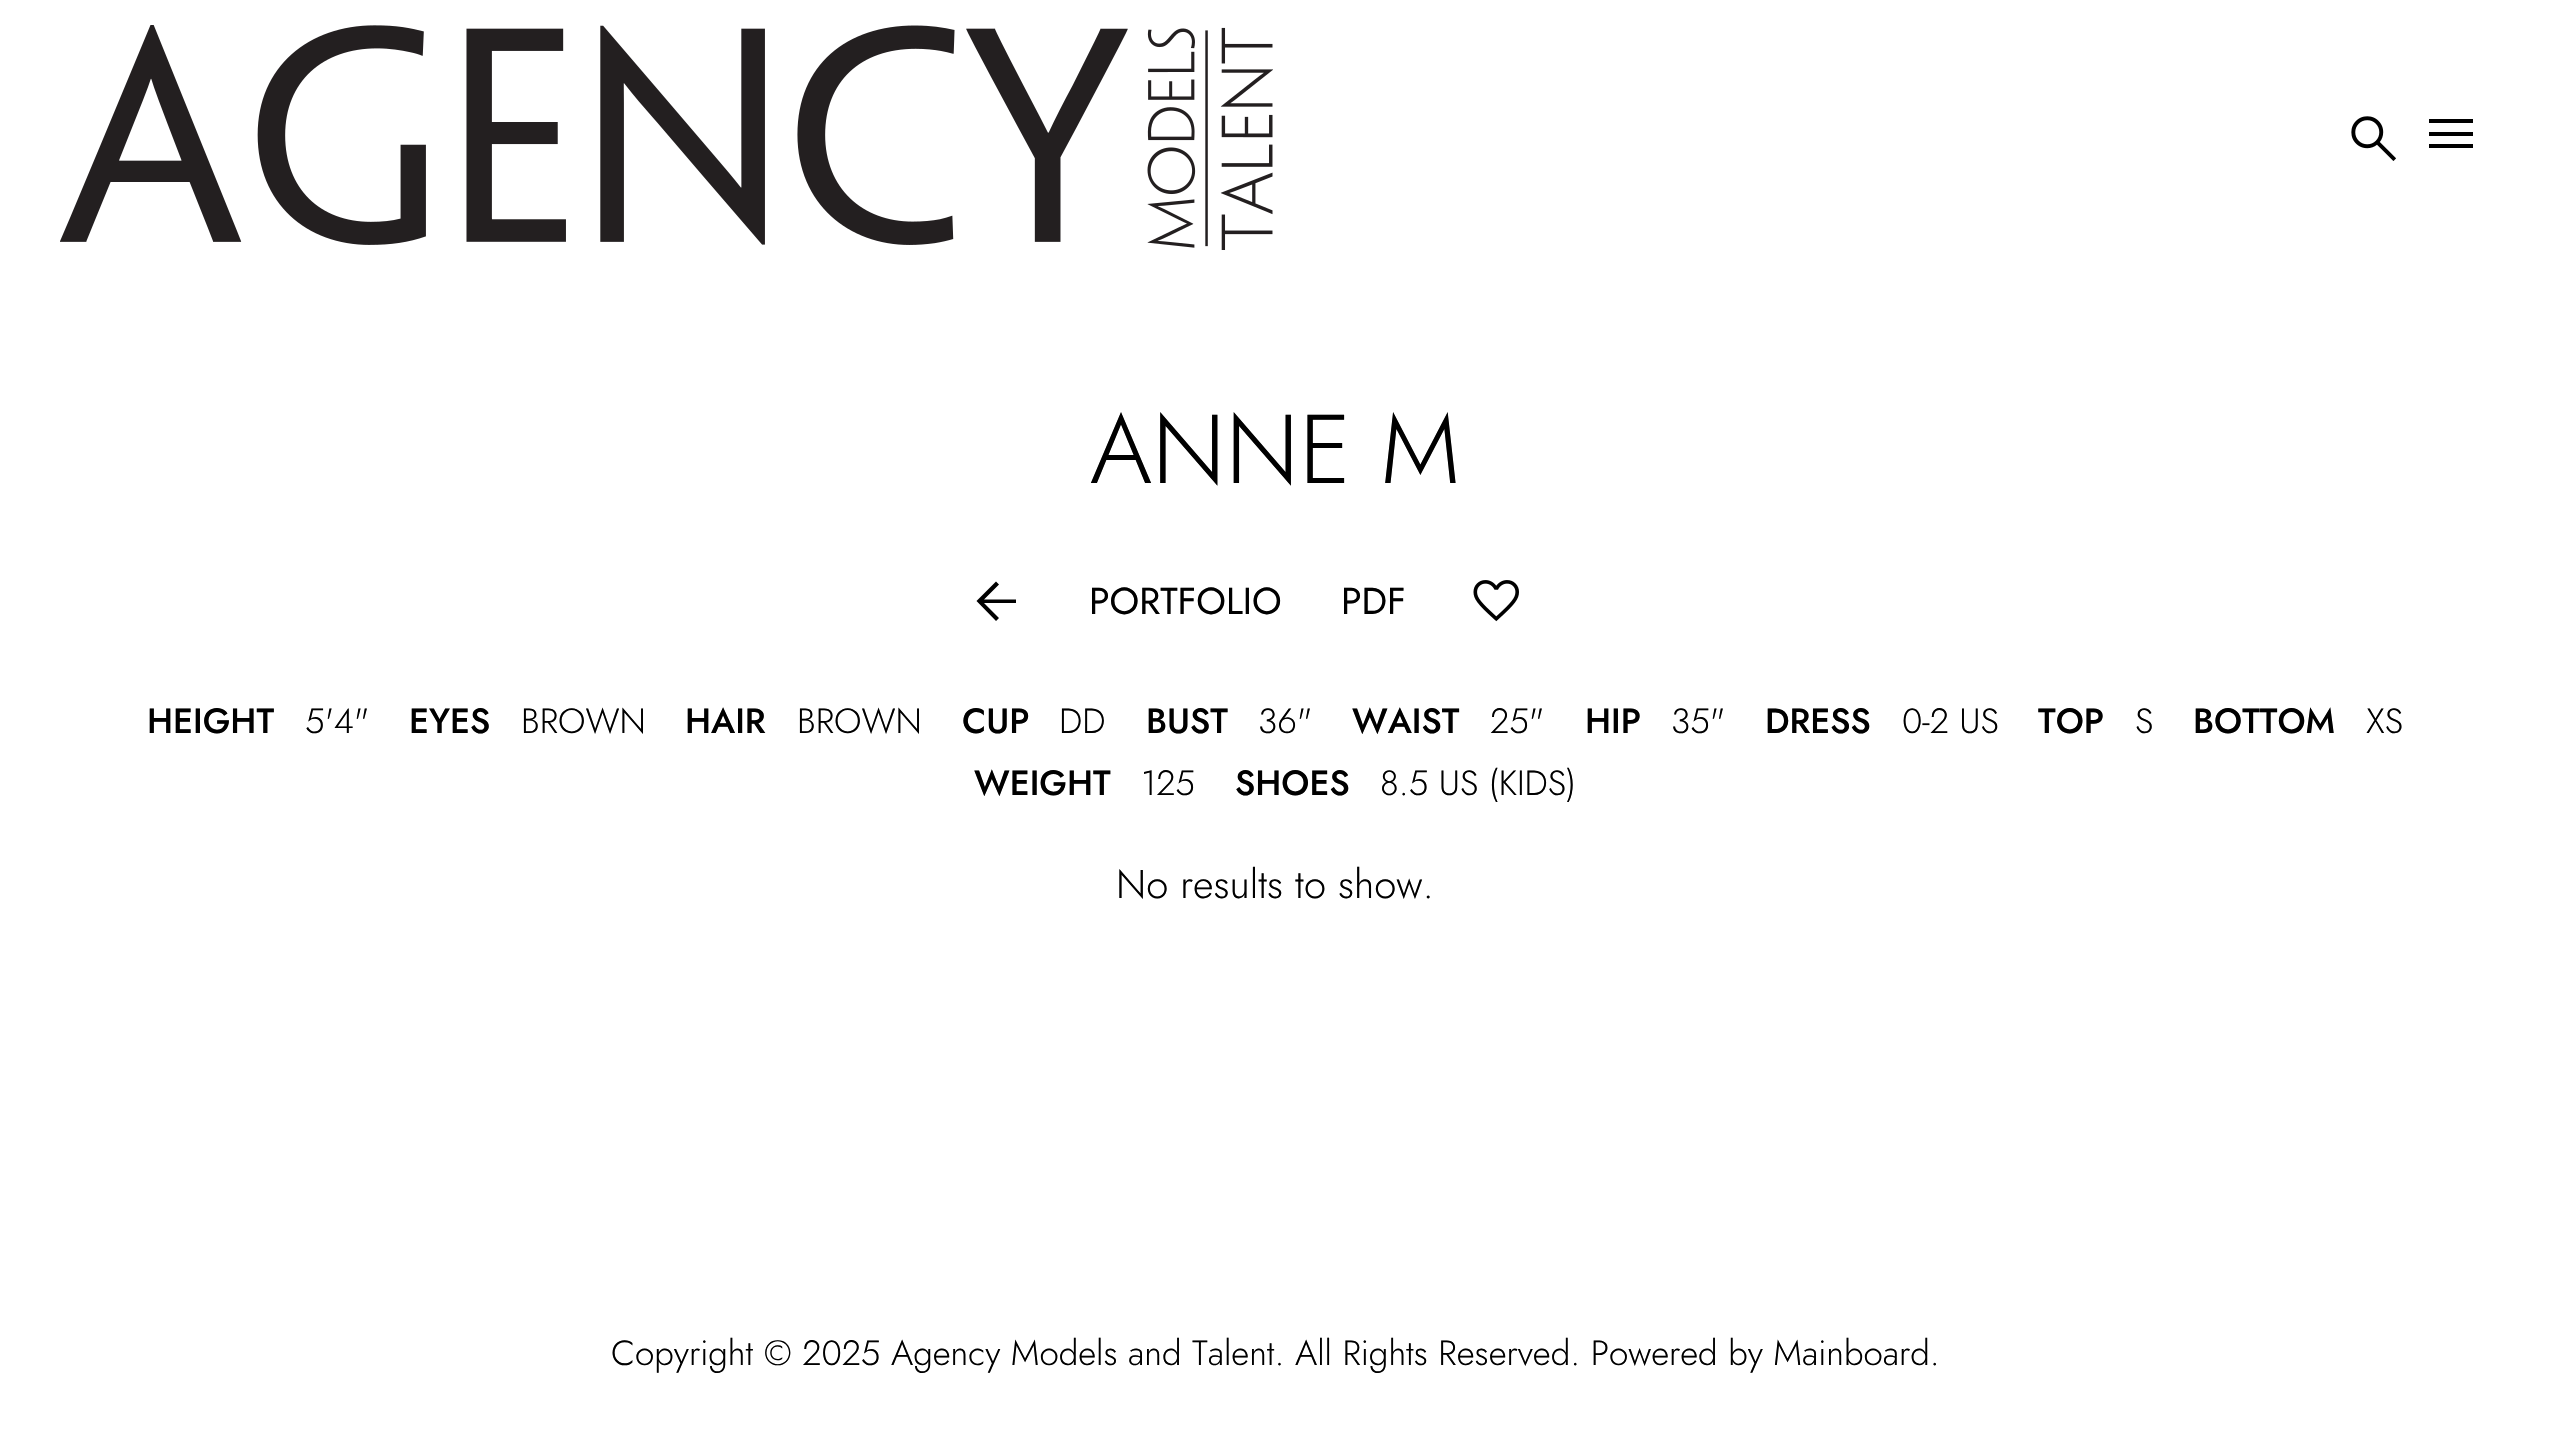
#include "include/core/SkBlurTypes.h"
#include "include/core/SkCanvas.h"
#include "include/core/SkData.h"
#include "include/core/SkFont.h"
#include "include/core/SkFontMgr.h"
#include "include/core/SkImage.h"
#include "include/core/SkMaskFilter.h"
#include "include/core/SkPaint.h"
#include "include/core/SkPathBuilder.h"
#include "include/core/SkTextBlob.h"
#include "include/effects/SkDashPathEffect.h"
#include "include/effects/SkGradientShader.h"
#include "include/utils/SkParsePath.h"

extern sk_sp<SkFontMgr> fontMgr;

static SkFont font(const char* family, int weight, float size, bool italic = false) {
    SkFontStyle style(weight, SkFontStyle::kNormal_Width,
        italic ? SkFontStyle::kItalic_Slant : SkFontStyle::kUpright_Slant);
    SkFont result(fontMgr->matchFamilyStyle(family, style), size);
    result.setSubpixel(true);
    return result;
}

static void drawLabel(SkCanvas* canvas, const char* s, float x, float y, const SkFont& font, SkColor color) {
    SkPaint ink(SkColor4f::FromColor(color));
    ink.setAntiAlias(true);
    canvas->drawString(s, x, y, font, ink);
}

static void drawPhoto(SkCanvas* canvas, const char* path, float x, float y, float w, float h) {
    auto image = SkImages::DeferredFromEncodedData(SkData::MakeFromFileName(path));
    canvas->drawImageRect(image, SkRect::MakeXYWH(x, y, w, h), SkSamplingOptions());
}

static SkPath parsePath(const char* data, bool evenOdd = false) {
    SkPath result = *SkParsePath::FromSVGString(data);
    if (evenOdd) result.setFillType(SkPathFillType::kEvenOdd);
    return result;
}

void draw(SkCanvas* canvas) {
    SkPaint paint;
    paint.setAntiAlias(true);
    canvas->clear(0xFFFFFFFF);
    drawPhoto(canvas, "assets/img1.png", 60, 25, 1213, 225);
    drawPhoto(canvas, "assets/img2.png", 2351, 116, 45, 45);
    paint.setColor(0xFF000000);
    canvas->drawPath(parsePath("M2429 148V144H2473V148ZM2429 136V132H2473V136ZM2429 123V119H2473V123Z"), paint);
    SkFont font1 = font("Jost", 300, 97.5f);
    drawLabel(canvas, "ANNE M", 1090, 483, font1, 0xFF000000);
    canvas->drawPath(parsePath("M984 603L999 618L996 621L976.5 601L996 581.5L999 584.5L984 599.5H1016V603Z"), paint);
    SkFont font2 = font("Jost", 400, 37.5f);
    drawLabel(canvas, "PORTFOLIO", 1089, 614, font2, 0xFF000000);
    drawLabel(canvas, "PDF", 1341, 614, font2, 0xFF000000);
    drawPhoto(canvas, "assets/img3.png", 1473, 580, 46, 42);
    SkFont font3 = font("Jost", 500, 35);
    drawLabel(canvas, "HEIGHT", 147, 733, font3, 0xFF000000);
    SkFont font4 = font("Jost", 300, 35);
    drawLabel(canvas, "5'4\"", 305, 733, font4, 0xFF000000);
    drawLabel(canvas, "EYES", 409, 733, font3, 0xFF000000);
    drawLabel(canvas, "BROWN", 521, 733, font4, 0xFF000000);
    drawLabel(canvas, "HAIR", 685, 733, font3, 0xFF000000);
    drawLabel(canvas, "BROWN", 797, 733, font4, 0xFF000000);
    drawLabel(canvas, "CUP", 962, 733, font3, 0xFF000000);
    drawLabel(canvas, "DD", 1059, 733, font4, 0xFF000000);
    drawLabel(canvas, "BUST", 1146, 733, font3, 0xFF000000);
    drawLabel(canvas, "36\"", 1258, 733, font4, 0xFF000000);
    drawLabel(canvas, "WAIST", 1352, 733, font3, 0xFF000000);
    drawLabel(canvas, "25\"", 1490, 733, font4, 0xFF000000);
    drawLabel(canvas, "HIP", 1585, 733, font3, 0xFF000000);
    drawLabel(canvas, "35\"", 1671, 733, font4, 0xFF000000);
    drawLabel(canvas, "DRESS", 1765, 733, font3, 0xFF000000);
    drawLabel(canvas, "0-2 US", 1902, 733, font4, 0xFF000000);
    drawLabel(canvas, "TOP", 2038, 733, font3, 0xFF000000);
    drawLabel(canvas, "S", 2135, 733, font4, 0xFF000000);
    drawLabel(canvas, "BOTTOM", 2193, 733, font3, 0xFF000000);
    drawLabel(canvas, "XS", 2366, 733, font4, 0xFF000000);
    drawLabel(canvas, "WEIGHT", 974, 795, font3, 0xFF000000);
    drawLabel(canvas, "125", 1141, 795, font4, 0xFF000000);
    drawLabel(canvas, "SHOES", 1235, 795, font3, 0xFF000000);
    drawLabel(canvas, "8.5 US (KIDS)", 1380, 795, font4, 0xFF000000);
    SkFont font5 = font("Jost", 300, 40);
    drawLabel(canvas, "No results to show.", 1116, 898, font5, 0xFF000000);
    drawLabel(canvas, "Copyright © 2025 Agency Models and Talent. All Rights Reserved. Powered by Mainboard.", 611, 1365, font4, 0xFF000000);
}
